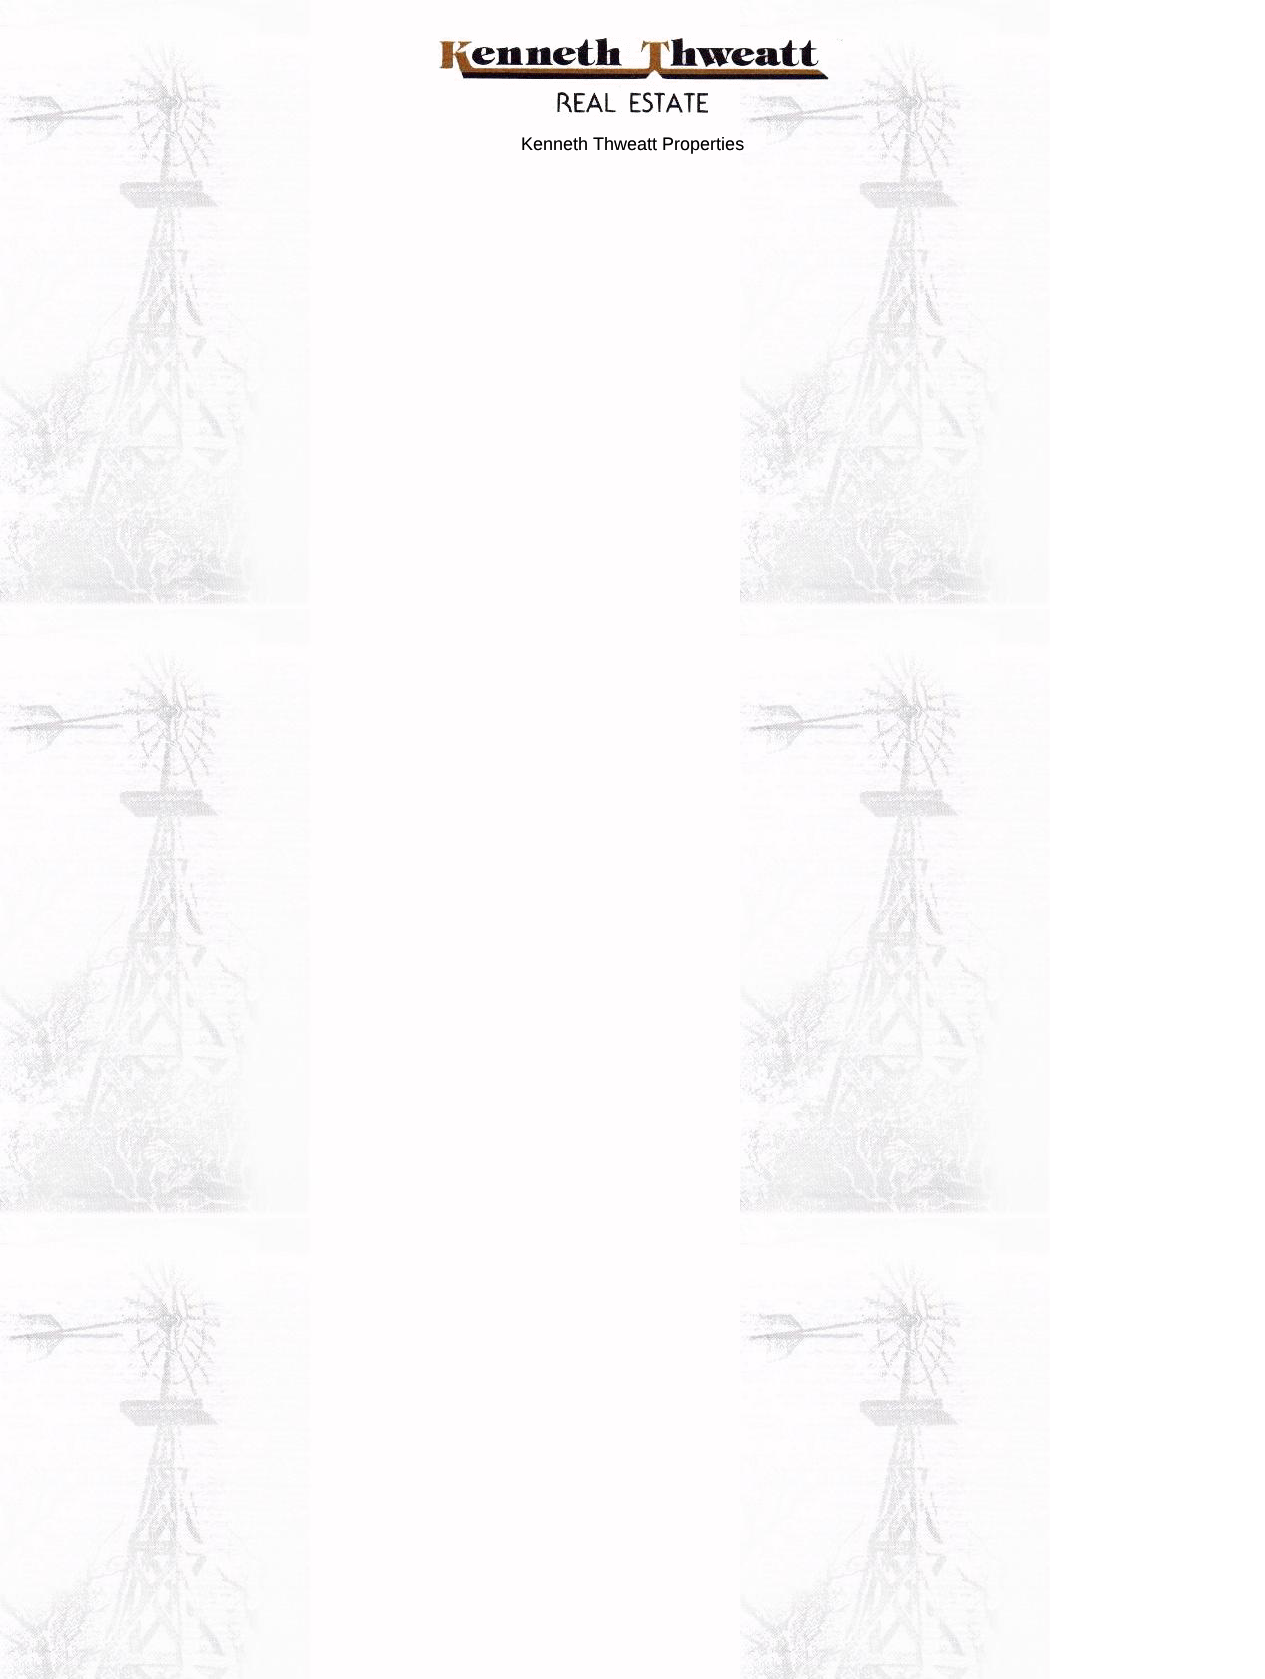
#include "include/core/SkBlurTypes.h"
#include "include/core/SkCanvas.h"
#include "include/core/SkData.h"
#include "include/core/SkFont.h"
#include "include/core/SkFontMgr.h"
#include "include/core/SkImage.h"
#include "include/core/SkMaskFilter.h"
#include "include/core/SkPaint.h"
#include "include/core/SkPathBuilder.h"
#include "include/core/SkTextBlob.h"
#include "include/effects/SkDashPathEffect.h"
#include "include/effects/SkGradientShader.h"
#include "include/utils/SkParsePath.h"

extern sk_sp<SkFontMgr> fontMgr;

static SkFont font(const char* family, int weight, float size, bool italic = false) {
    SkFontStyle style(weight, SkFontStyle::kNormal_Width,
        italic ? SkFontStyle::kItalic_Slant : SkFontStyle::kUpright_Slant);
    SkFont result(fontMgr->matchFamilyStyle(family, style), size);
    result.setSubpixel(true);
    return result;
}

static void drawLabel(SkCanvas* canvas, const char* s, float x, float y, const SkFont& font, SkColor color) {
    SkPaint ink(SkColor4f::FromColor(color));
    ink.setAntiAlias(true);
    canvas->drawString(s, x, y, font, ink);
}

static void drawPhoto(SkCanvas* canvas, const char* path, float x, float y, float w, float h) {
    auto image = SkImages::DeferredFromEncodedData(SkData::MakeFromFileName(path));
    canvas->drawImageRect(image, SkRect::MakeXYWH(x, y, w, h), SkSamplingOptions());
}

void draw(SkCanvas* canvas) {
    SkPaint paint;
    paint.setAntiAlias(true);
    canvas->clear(0xFFFFFFFF);
    drawPhoto(canvas, "assets/img1.png", 0, 0, 1050, 1679);
    drawPhoto(canvas, "assets/img2.png", 438, 37, 405, 80);
    SkFont font1 = font("Liberation Sans", 400, 18);
    drawLabel(canvas, "Kenneth Thweatt Properties", 521, 150, font1, 0xFF000000);
}
